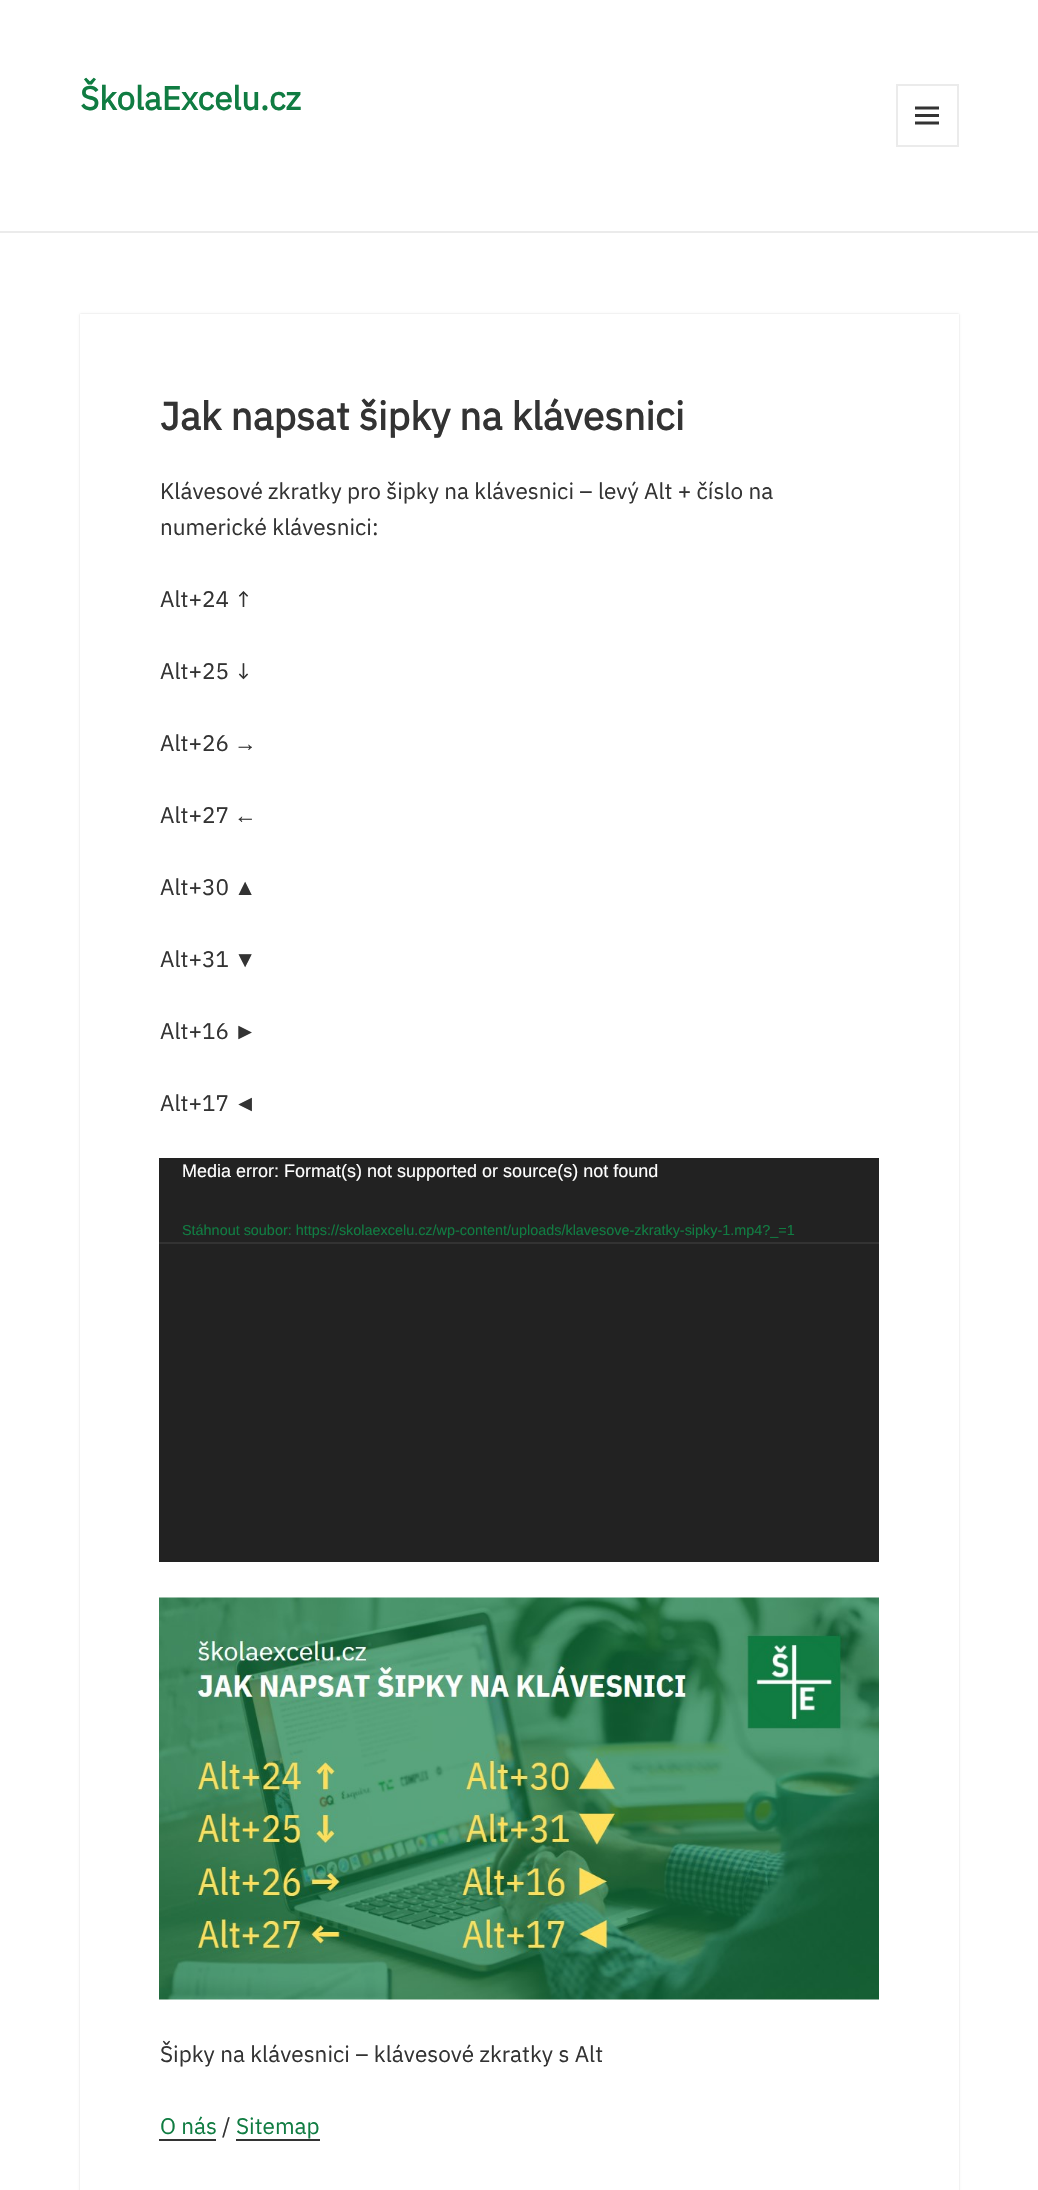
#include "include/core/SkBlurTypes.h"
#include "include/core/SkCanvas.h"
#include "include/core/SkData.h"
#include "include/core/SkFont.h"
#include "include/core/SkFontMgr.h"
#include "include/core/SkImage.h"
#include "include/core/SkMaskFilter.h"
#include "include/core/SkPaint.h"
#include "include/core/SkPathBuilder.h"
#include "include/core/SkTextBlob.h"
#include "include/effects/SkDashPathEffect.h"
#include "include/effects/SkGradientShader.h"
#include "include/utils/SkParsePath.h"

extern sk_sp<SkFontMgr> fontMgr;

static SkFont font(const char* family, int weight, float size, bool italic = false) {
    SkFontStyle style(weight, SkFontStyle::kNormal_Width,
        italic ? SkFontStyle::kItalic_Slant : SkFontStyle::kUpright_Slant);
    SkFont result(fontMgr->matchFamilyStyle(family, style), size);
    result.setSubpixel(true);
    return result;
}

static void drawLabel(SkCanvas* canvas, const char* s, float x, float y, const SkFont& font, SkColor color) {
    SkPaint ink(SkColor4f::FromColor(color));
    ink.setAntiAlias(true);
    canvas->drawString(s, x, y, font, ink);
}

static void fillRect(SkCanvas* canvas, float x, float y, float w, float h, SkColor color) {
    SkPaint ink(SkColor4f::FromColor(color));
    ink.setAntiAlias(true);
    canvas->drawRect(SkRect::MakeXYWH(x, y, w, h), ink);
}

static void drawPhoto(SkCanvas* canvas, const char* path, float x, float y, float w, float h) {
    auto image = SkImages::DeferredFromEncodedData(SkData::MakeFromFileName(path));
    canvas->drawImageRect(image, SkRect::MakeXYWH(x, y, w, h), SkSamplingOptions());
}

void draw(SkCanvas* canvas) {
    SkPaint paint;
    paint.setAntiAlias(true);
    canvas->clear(0xFFFFFFFF);
    fillRect(canvas, 0, 231, 1038, 2, 0xFFEBEBEB);
    SkFont font1 = font("IBM Plex Sans", 700, 33);
    drawLabel(canvas, "ŠkolaExcelu.cz", 80, 110, font1, 0xFF107C42);
    paint.setStroke(true);
    paint.setStrokeWidth(2);
    paint.setColor(0xFFEBEBEB);
    canvas->drawRect(SkRect::MakeXYWH(897, 85, 61, 61), paint);
    drawPhoto(canvas, "assets/img1.png", 915, 106, 24, 19);
    paint.setStroke(false);
    paint.setColor(0x26000000);
    paint.setMaskFilter(SkMaskFilter::MakeBlur(kNormal_SkBlurStyle, 1));
    canvas->drawRect(SkRect::MakeXYWH(80, 314, 879, 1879), paint);
    paint.setMaskFilter(nullptr);
    fillRect(canvas, 80, 314, 879, 1876, 0xFFFFFFFF);
    SkFont font2 = font("IBM Plex Sans", 700, 39);
    drawLabel(canvas, "Jak napsat šipky na klávesnici", 160, 430, font2, 0xFF333333);
    SkFont font3 = font("IBM Plex Sans", 400, 22.5f);
    drawLabel(canvas, "Klávesové zkratky pro šipky na klávesnici – levý Alt + číslo na", 160, 499, font3, 0xFF333333);
    drawLabel(canvas, "numerické klávesnici:", 160, 535, font3, 0xFF333333);
    drawLabel(canvas, "Alt+24 ↑", 160, 607, font3, 0xFF333333);
    drawLabel(canvas, "Alt+25 ↓", 160, 679, font3, 0xFF333333);
    drawLabel(canvas, "Alt+26", 160, 751, font3, 0xFF333333);
    SkFont font4 = font("Liberation Sans", 400, 22.5f);
    drawLabel(canvas, "→", 234, 751, font4, 0xFF333333);
    drawLabel(canvas, "Alt+27", 160, 823, font3, 0xFF333333);
    drawLabel(canvas, "←", 234, 823, font4, 0xFF333333);
    drawLabel(canvas, "Alt+30", 160, 895, font3, 0xFF333333);
    drawLabel(canvas, "▲", 234, 895, font4, 0xFF333333);
    drawLabel(canvas, "Alt+31", 160, 967, font3, 0xFF333333);
    drawLabel(canvas, "▼", 234, 967, font4, 0xFF333333);
    drawLabel(canvas, "Alt+16", 160, 1039, font3, 0xFF333333);
    drawLabel(canvas, "►", 234, 1039, font4, 0xFF333333);
    drawLabel(canvas, "Alt+17", 160, 1111, font3, 0xFF333333);
    drawLabel(canvas, "◄", 234, 1111, font4, 0xFF333333);
    fillRect(canvas, 159, 1158, 720, 404, 0xFF222222);
    SkFont font5 = font("Liberation Sans", 400, 18);
    drawLabel(canvas, "Media error: Format(s) not supported or source(s) not found", 182, 1177, font5, 0xFFFFFFFF);
    fillRect(canvas, 159, 1242, 720, 2, 0xFF333333);
    SkFont font6 = font("Liberation Sans", 400, 14.4f);
    drawLabel(canvas, "Stáhnout soubor: https://skolaexcelu.cz/wp-content/uploads/klavesove-zkratky-sipky-1.mp4?_=1", 182, 1235, font6, 0xFF107C42);
    drawPhoto(canvas, "assets/img2.png", 159, 1597, 720, 403);
    drawLabel(canvas, "Šipky na klávesnici – klávesové zkratky s Alt", 160, 2062, font3, 0xFF333333);
    drawLabel(canvas, "O nás", 160, 2134, font3, 0xFF107C42);
    fillRect(canvas, 159, 2139, 57, 2, 0xFF333333);
    drawLabel(canvas, "/", 222, 2134, font3, 0xFF333333);
    drawLabel(canvas, "Sitemap", 236, 2134, font3, 0xFF107C42);
    fillRect(canvas, 236, 2139, 84, 2, 0xFF333333);
}
